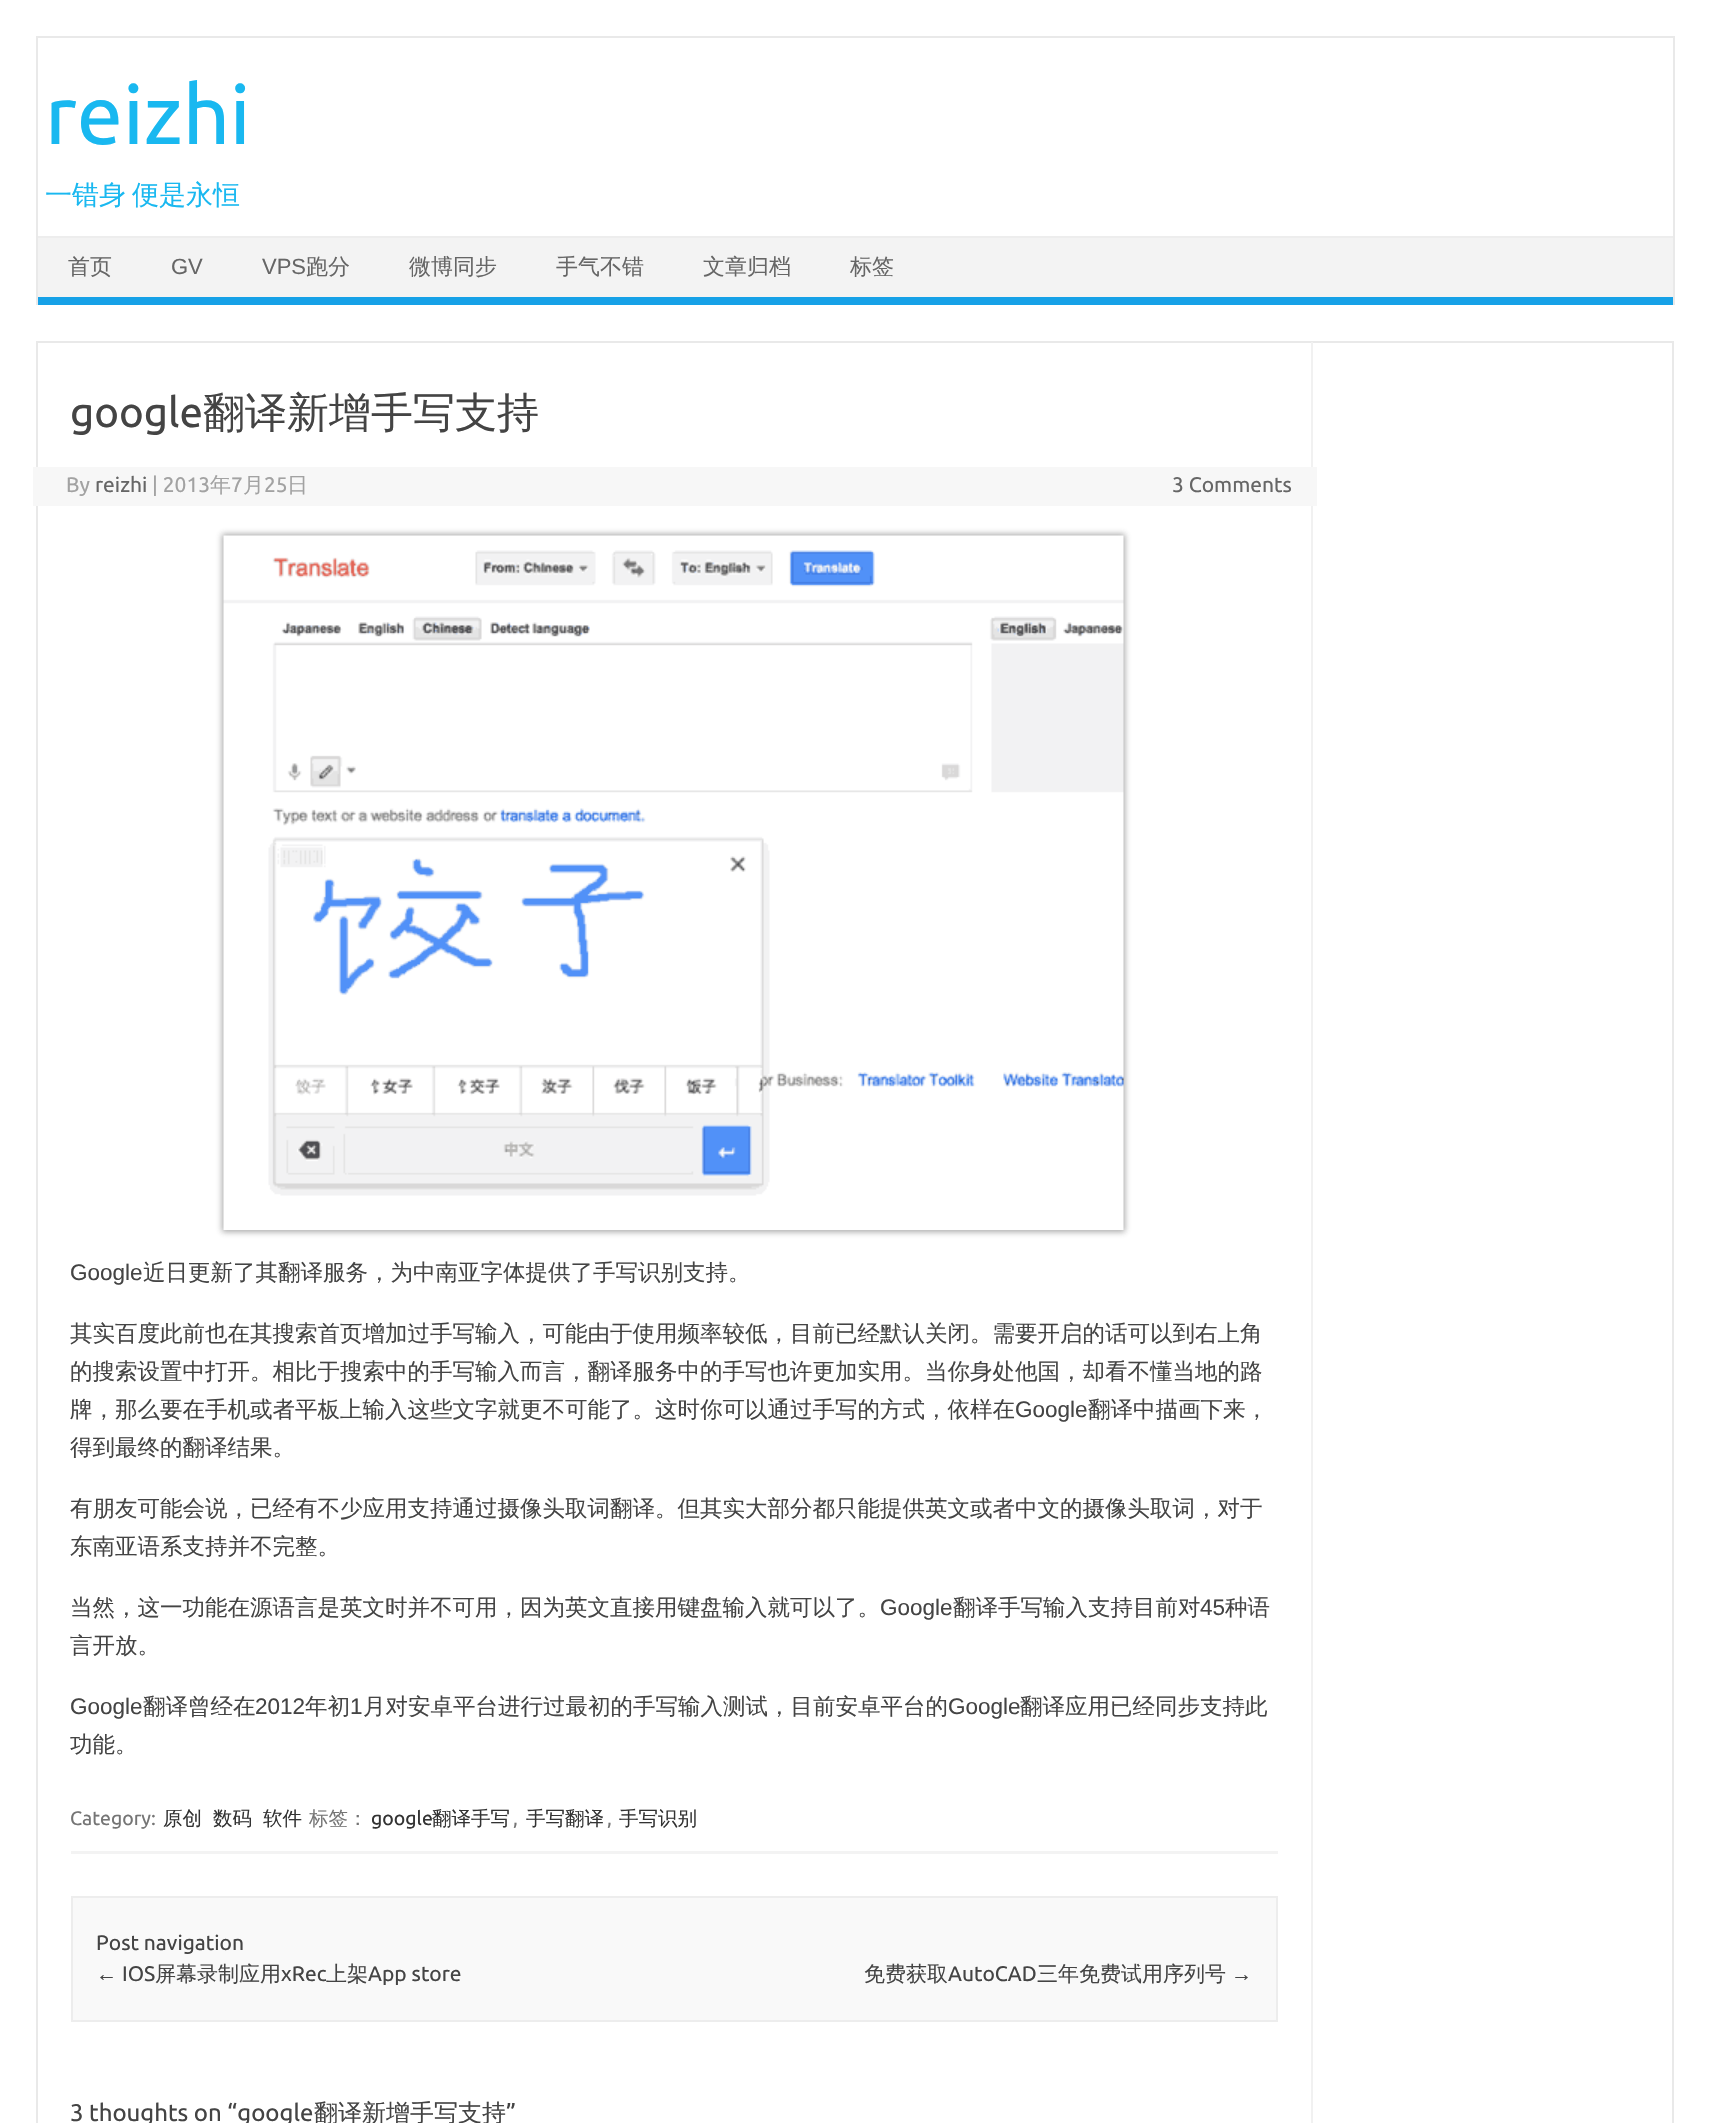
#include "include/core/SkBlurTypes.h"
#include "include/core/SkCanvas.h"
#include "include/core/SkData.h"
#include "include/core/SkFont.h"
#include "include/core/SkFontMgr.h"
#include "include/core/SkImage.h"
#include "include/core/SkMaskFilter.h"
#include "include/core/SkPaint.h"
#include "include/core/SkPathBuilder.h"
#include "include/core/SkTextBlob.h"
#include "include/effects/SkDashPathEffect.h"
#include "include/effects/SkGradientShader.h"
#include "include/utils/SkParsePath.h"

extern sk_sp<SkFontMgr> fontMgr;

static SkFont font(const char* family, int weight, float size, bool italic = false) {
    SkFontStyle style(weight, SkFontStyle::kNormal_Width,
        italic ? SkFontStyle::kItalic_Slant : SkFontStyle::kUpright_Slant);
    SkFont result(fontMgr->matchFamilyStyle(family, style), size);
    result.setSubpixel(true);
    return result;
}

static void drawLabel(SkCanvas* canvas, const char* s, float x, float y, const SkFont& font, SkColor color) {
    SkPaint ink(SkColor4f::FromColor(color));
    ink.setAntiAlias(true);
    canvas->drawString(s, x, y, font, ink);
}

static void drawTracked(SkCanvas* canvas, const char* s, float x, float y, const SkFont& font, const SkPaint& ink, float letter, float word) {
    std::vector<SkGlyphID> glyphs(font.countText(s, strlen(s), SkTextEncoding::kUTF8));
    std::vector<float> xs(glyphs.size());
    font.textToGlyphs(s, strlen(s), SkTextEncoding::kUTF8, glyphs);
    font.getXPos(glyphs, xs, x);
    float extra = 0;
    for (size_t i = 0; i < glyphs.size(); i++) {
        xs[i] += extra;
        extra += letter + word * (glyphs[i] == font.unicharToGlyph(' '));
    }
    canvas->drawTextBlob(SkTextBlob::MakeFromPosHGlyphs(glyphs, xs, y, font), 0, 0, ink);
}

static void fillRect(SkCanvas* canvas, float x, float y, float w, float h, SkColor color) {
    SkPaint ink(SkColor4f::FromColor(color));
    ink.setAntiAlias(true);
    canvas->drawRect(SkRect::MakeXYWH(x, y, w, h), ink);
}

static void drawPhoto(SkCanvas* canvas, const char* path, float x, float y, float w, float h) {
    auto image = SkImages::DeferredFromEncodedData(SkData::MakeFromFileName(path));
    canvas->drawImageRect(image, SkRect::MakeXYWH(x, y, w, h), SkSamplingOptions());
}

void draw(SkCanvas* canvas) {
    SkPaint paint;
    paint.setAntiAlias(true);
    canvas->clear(0xFFFFFFFF);
    fillRect(canvas, 36, 36, 1638, 2, 0xFFE9E9E9);
    fillRect(canvas, 1673, 36, 2, 269, 0xFFE9E9E9);
    fillRect(canvas, 36, 36, 2, 269, 0xFFE9E9E9);
    SkFont font1 = font("Ubuntu", 400, 82.5f);
    drawLabel(canvas, "reizhi", 45, 144, font1, 0xFF19B8F0);
    SkFont font2 = font("WenQuanYi Zen Hei", 500, 27);
    paint.setColor(0xFF19B8F0);
    drawTracked(canvas, "一错身 便是永恒", 45, 204, font2, paint, 0, -2);
    fillRect(canvas, 38, 238, 1635, 59, 0xFFF3F3F3);
    fillRect(canvas, 38, 236, 1635, 2, 0xFFEDEDED);
    fillRect(canvas, 38, 297, 1635, 8, 0xFF16A1E7);
    SkFont font3 = font("WenQuanYi Zen Hei", 500, 22);
    drawLabel(canvas, "首页", 68, 274, font3, 0xFF666666);
    SkFont font4 = font("Liberation Sans", 400, 22);
    drawLabel(canvas, "GV", 171, 274, font4, 0xFF666666);
    drawLabel(canvas, "VPS", 262, 274, font4, 0xFF666666);
    drawLabel(canvas, "跑分", 306, 274, font3, 0xFF666666);
    drawLabel(canvas, "微博同步", 409, 274, font3, 0xFF666666);
    drawLabel(canvas, "手气不错", 556, 274, font3, 0xFF666666);
    drawLabel(canvas, "文章归档", 703, 274, font3, 0xFF666666);
    drawLabel(canvas, "标签", 850, 274, font3, 0xFF666666);
    paint.setStroke(true);
    paint.setStrokeWidth(2);
    paint.setColor(0xFFE9E9E9);
    canvas->drawRect(SkRect::MakeXYWH(37, 342, 1636, 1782), paint);
    fillRect(canvas, 1311, 342, 2, 1781, 0xFFF1F1F1);
    fillRect(canvas, 71, 1851, 1207, 3, 0xFFF3F3F3);
    SkFont font5 = font("Ubuntu", 400, 42);
    drawLabel(canvas, "google", 70, 427, font5, 0xFF444444);
    SkFont font6 = font("WenQuanYi Zen Hei", 500, 42);
    drawLabel(canvas, "翻译新增手写支持", 203, 427, font6, 0xFF444444);
    fillRect(canvas, 33, 467, 1284, 39, 0xFFF7F7F7);
    SkFont font7 = font("Ubuntu", 400, 21);
    drawLabel(canvas, "By", 66, 492, font7, 0xFFA2A2A2);
    drawLabel(canvas, "reizhi", 95, 492, font7, 0xFF666666);
    drawLabel(canvas, "| 2013", 152, 492, font7, 0xFFA2A2A2);
    SkFont font8 = font("WenQuanYi Zen Hei", 500, 21);
    drawLabel(canvas, "年", 210, 492, font8, 0xFFA2A2A2);
    drawLabel(canvas, "7", 231, 492, font7, 0xFFA2A2A2);
    drawLabel(canvas, "月", 243, 492, font8, 0xFFA2A2A2);
    drawLabel(canvas, "25", 264, 492, font7, 0xFFA2A2A2);
    drawLabel(canvas, "日", 287, 492, font8, 0xFFA2A2A2);
    drawLabel(canvas, "3 Comments", 1172, 492, font7, 0xFF666666);
    paint.setStroke(false);
    paint.setColor(0x6B333333);
    paint.setMaskFilter(SkMaskFilter::MakeBlur(kNormal_SkBlurStyle, 3));
    canvas->drawRect(SkRect::MakeXYWH(222, 534, 903, 698), paint);
    paint.setMaskFilter(nullptr);
    drawPhoto(canvas, "assets/img1.png", 223, 535, 901, 695);
    SkFont font9 = font("Liberation Sans", 400, 22.5f);
    drawLabel(canvas, "Google", 70, 1280, font9, 0xFF444444);
    SkFont font10 = font("WenQuanYi Zen Hei", 500, 22.5f);
    drawLabel(canvas, "近日更新了其翻译服务，为中南亚字体提供了手写识别支持。", 143, 1280, font10, 0xFF444444);
    drawLabel(canvas, "其实百度此前也在其搜索首页增加过手写输入，可能由于使用频率较低，目前已经默认关闭。需要开启的话可以到右上角", 70, 1341, font10, 0xFF444444);
    drawLabel(canvas, "的搜索设置中打开。相比于搜索中的手写输入而言，翻译服务中的手写也许更加实用。当你身处他国，却看不懂当地的路", 70, 1379, font10, 0xFF444444);
    drawLabel(canvas, "牌，那么要在手机或者平板上输入这些文字就更不可能了。这时你可以通过手写的方式，依样在", 70, 1417, font10, 0xFF444444);
    drawLabel(canvas, "Google", 1015, 1417, font9, 0xFF444444);
    drawLabel(canvas, "翻译中描画下来，", 1088, 1417, font10, 0xFF444444);
    drawLabel(canvas, "得到最终的翻译结果。", 70, 1455, font10, 0xFF444444);
    drawLabel(canvas, "有朋友可能会说，已经有不少应用支持通过摄像头取词翻译。但其实大部分都只能提供英文或者中文的摄像头取词，对于", 70, 1516, font10, 0xFF444444);
    drawLabel(canvas, "东南亚语系支持并不完整。", 70, 1554, font10, 0xFF444444);
    drawLabel(canvas, "当然，这一功能在源语言是英文时并不可用，因为英文直接用键盘输入就可以了。", 70, 1615, font10, 0xFF444444);
    drawLabel(canvas, "Google", 880, 1615, font9, 0xFF444444);
    drawLabel(canvas, "翻译手写输入支持目前对", 953, 1615, font10, 0xFF444444);
    drawLabel(canvas, "45", 1200, 1615, font9, 0xFF444444);
    drawLabel(canvas, "种语", 1225, 1615, font10, 0xFF444444);
    drawLabel(canvas, "言开放。", 70, 1653, font10, 0xFF444444);
    drawLabel(canvas, "Google", 70, 1714, font9, 0xFF444444);
    drawLabel(canvas, "翻译曾经在", 143, 1714, font10, 0xFF444444);
    drawLabel(canvas, "2012", 255, 1714, font9, 0xFF444444);
    drawLabel(canvas, "年初", 305, 1714, font10, 0xFF444444);
    drawLabel(canvas, "1", 350, 1714, font9, 0xFF444444);
    drawLabel(canvas, "月对安卓平台进行过最初的手写输入测试，目前安卓平台的", 363, 1714, font10, 0xFF444444);
    drawLabel(canvas, "Google", 948, 1714, font9, 0xFF444444);
    drawLabel(canvas, "翻译应用已经同步支持此", 1020, 1714, font10, 0xFF444444);
    drawLabel(canvas, "功能。", 70, 1752, font10, 0xFF444444);
    SkFont font11 = font("Ubuntu", 400, 19.5f);
    drawLabel(canvas, "Category:", 70, 1825, font11, 0xFF757575);
    SkFont font12 = font("WenQuanYi Zen Hei", 500, 19.5f);
    drawLabel(canvas, "原创", 163, 1825, font12, 0xFF333333);
    drawLabel(canvas, "数码", 213, 1825, font12, 0xFF333333);
    drawLabel(canvas, "软件", 263, 1825, font12, 0xFF333333);
    drawLabel(canvas, "标签：", 309, 1825, font12, 0xFF757575);
    drawLabel(canvas, "google", 371, 1825, font11, 0xFF333333);
    drawLabel(canvas, "翻译手写", 432, 1825, font12, 0xFF333333);
    drawLabel(canvas, ",", 513, 1825, font11, 0xFF757575);
    drawLabel(canvas, "手写翻译", 526, 1825, font12, 0xFF333333);
    drawLabel(canvas, ",", 607, 1825, font11, 0xFF757575);
    drawLabel(canvas, "手写识别", 619, 1825, font12, 0xFF333333);
    paint.setColor(0xFFF9F9F9);
    canvas->drawRect(SkRect::MakeXYWH(72, 1897, 1205, 124), paint);
    paint.setStroke(true);
    paint.setColor(0xFFEDEDED);
    canvas->drawRect(SkRect::MakeXYWH(72, 1897, 1205, 124), paint);
    drawLabel(canvas, "Post navigation", 96, 1950, font7, 0xFF444444);
    SkFont font13 = font("Liberation Sans", 400, 21);
    drawLabel(canvas, "←", 96, 1981, font13, 0xFF444444);
    drawLabel(canvas, "IOS", 122, 1981, font7, 0xFF444444);
    drawLabel(canvas, "屏幕录制应用", 155, 1981, font8, 0xFF444444);
    drawLabel(canvas, "xRec", 281, 1981, font7, 0xFF444444);
    drawLabel(canvas, "上架", 326, 1981, font8, 0xFF444444);
    drawLabel(canvas, "App store", 368, 1981, font7, 0xFF444444);
    drawLabel(canvas, "免费获取", 864, 1981, font8, 0xFF444444);
    drawLabel(canvas, "AutoCAD", 948, 1981, font7, 0xFF444444);
    drawLabel(canvas, "三年免费试用序列号", 1037, 1981, font8, 0xFF444444);
    drawLabel(canvas, "→", 1231, 1981, font13, 0xFF444444);
    SkFont font14 = font("Ubuntu", 400, 24);
    drawLabel(canvas, "3 thoughts on “google", 70, 2121, font14, 0xFF444444);
    SkFont font15 = font("WenQuanYi Zen Hei", 500, 24);
    drawLabel(canvas, "翻译新增手写支持", 314, 2121, font15, 0xFF444444);
    drawLabel(canvas, "”", 506, 2121, font14, 0xFF444444);
}
